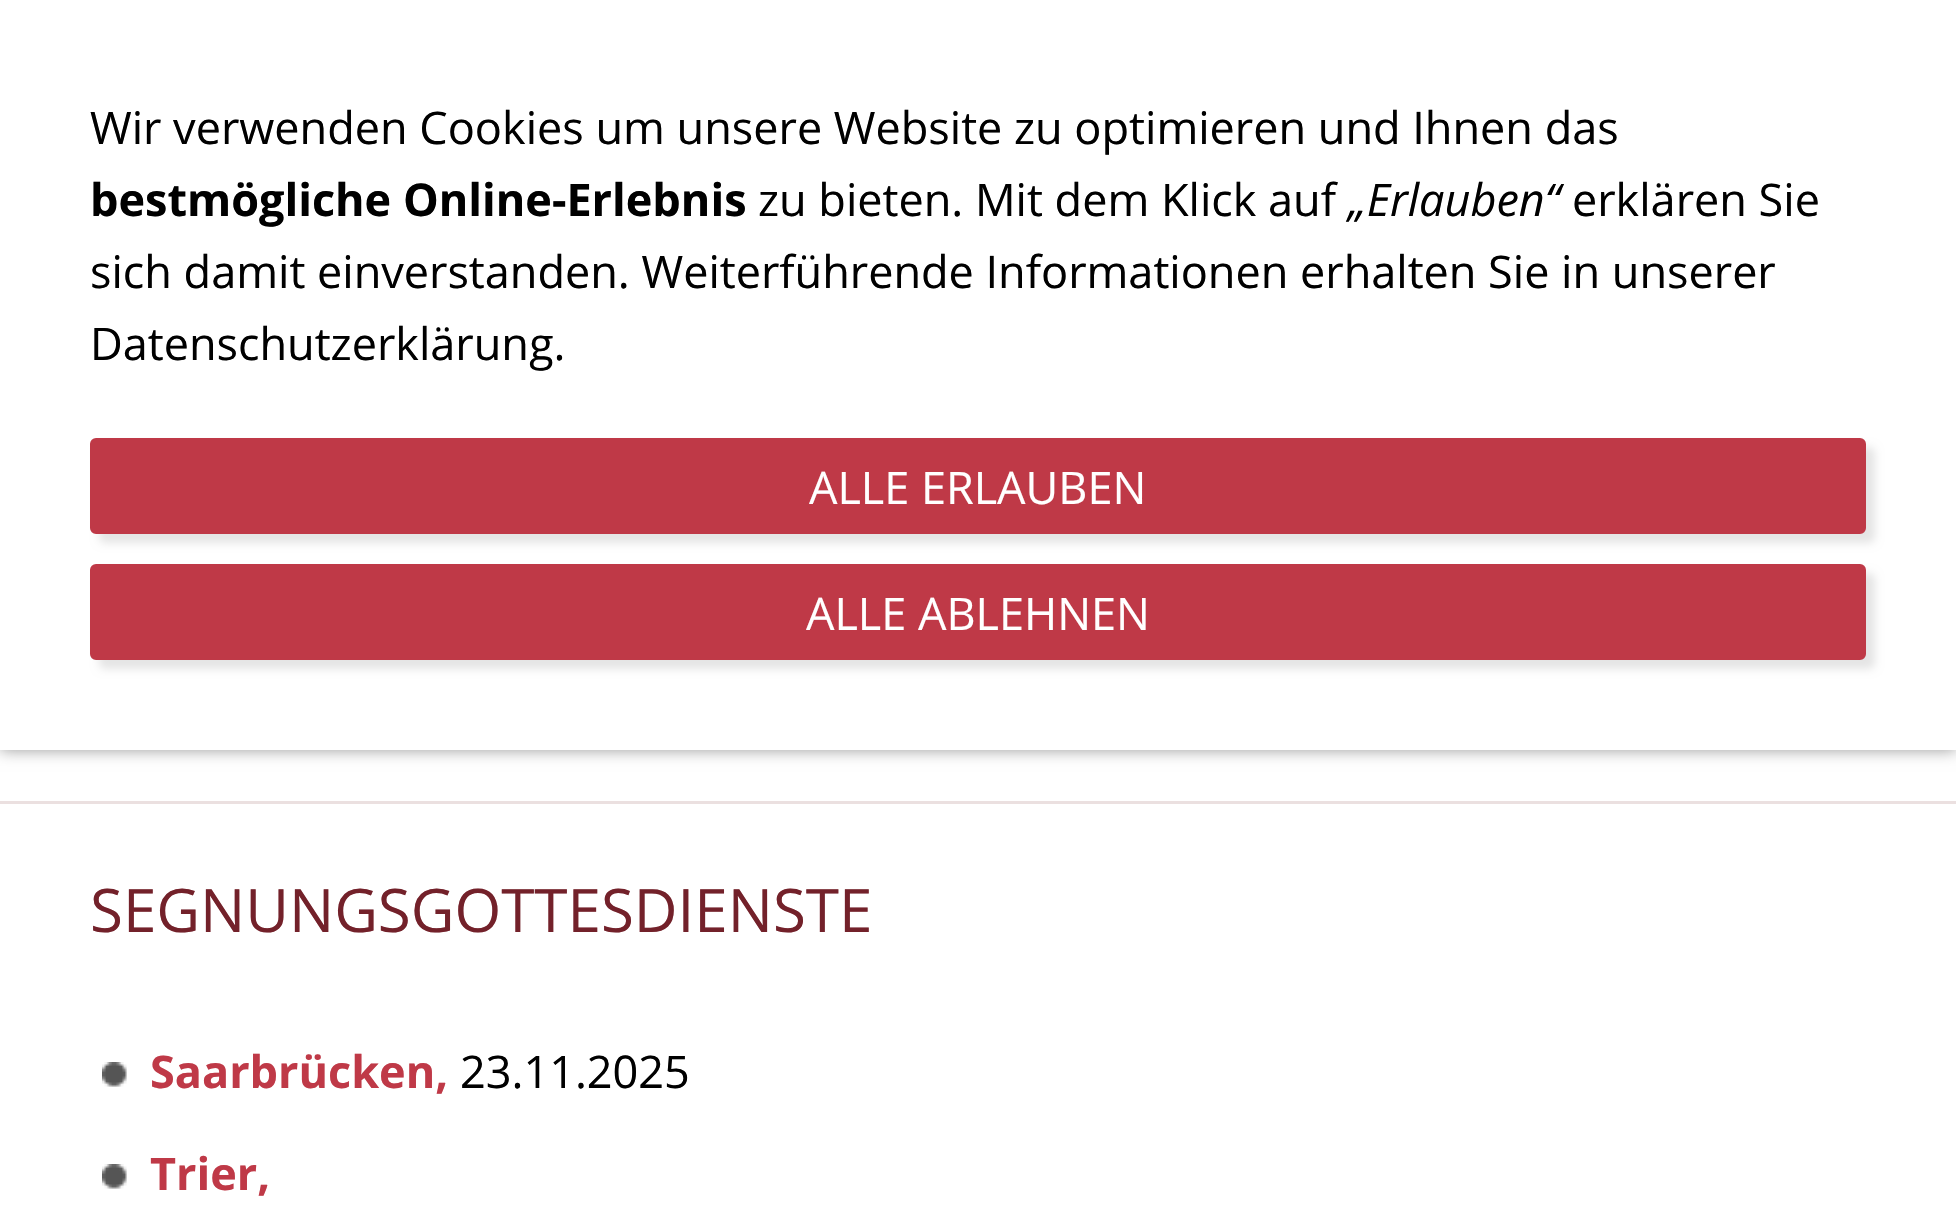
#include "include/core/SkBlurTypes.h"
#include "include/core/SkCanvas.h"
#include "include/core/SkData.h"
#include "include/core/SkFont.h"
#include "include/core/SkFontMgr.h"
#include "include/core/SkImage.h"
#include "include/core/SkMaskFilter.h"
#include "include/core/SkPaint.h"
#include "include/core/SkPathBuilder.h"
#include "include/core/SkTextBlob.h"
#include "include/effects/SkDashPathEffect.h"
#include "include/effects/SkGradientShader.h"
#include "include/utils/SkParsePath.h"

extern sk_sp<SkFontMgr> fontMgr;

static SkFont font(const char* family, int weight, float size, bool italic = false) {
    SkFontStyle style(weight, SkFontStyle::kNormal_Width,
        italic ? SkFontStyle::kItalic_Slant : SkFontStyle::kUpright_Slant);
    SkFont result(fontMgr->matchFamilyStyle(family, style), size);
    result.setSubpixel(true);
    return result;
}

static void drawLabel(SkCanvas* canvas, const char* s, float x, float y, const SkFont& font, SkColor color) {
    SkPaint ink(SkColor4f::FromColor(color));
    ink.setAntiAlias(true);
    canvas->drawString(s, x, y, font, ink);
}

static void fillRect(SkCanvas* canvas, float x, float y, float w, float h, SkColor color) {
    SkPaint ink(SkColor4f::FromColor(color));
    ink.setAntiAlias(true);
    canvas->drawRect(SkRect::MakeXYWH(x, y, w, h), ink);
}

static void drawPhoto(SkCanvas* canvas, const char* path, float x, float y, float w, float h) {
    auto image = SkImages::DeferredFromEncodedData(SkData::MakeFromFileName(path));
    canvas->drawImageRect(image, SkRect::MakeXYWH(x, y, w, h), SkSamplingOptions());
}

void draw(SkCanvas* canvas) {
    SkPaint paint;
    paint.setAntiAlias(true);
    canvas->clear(0xFFFFFFFF);
    paint.setColor(0x66000000);
    paint.setMaskFilter(SkMaskFilter::MakeBlur(kNormal_SkBlurStyle, 7.5f));
    canvas->drawRect(SkRect::MakeXYWH(0, 0, 1956, 750), paint);
    paint.setMaskFilter(nullptr);
    fillRect(canvas, 0, 0, 1956, 750, 0xFFFFFFFF);
    SkFont font1 = font("Open Sans", 400, 45);
    drawLabel(canvas, "Wir verwenden Cookies um unsere Website zu optimieren und Ihnen das", 90, 144, font1, 0xFF000000);
    SkFont font2 = font("Open Sans", 700, 45);
    drawLabel(canvas, "bestmögliche Online-Erlebnis", 90, 216, font2, 0xFF000000);
    drawLabel(canvas, "zu bieten. Mit dem Klick auf", 758, 216, font1, 0xFF000000);
    SkFont font3 = font("Open Sans", 400, 45, true);
    drawLabel(canvas, "„Erlauben“", 1348, 216, font3, 0xFF000000);
    drawLabel(canvas, "erklären Sie", 1572, 216, font1, 0xFF000000);
    drawLabel(canvas, "sich damit einverstanden. Weiterführende Informationen erhalten Sie in unserer", 90, 288, font1, 0xFF000000);
    drawLabel(canvas, "Datenschutzerklärung.", 90, 360, font1, 0xFF000000);
    paint.setColor(0x1A000000);
    paint.setMaskFilter(SkMaskFilter::MakeBlur(kNormal_SkBlurStyle, 4.5f));
    canvas->drawRoundRect(SkRect::MakeXYWH(99, 447, 1776, 96), 6, 6, paint);
    paint.setMaskFilter(nullptr);
    paint.setColor(0xFFBF3947);
    canvas->drawRoundRect(SkRect::MakeXYWH(91.5f, 439.5f, 1773, 93), 4.5f, 4.5f, paint);
    paint.setStroke(true);
    paint.setStrokeWidth(3);
    canvas->drawRoundRect(SkRect::MakeXYWH(91.5f, 439.5f, 1773, 93), 4.5f, 4.5f, paint);
    drawLabel(canvas, "ALLE ERLAUBEN", 809, 504, font1, 0xFFFFFFFF);
    paint.setStroke(false);
    paint.setColor(0x1A000000);
    paint.setMaskFilter(SkMaskFilter::MakeBlur(kNormal_SkBlurStyle, 4.5f));
    canvas->drawRoundRect(SkRect::MakeXYWH(99, 573, 1776, 96), 6, 6, paint);
    paint.setMaskFilter(nullptr);
    paint.setColor(0xFFBF3947);
    canvas->drawRoundRect(SkRect::MakeXYWH(91.5f, 565.5f, 1773, 93), 4.5f, 4.5f, paint);
    paint.setStroke(true);
    canvas->drawRoundRect(SkRect::MakeXYWH(91.5f, 565.5f, 1773, 93), 4.5f, 4.5f, paint);
    drawLabel(canvas, "ALLE ABLEHNEN", 806, 630, font1, 0xFFFFFFFF);
    fillRect(canvas, 0, 801, 1956, 3, 0xFFEBE0E0);
    SkFont font4 = font("Open Sans", 400, 60);
    drawLabel(canvas, "SEGNUNGSGOTTESDIENSTE", 90, 932, font4, 0xFF73212A);
    drawPhoto(canvas, "assets/img1.png", 102, 1062, 25, 25);
    drawLabel(canvas, "Saarbrücken,", 150, 1088, font2, 0xFFBF3947);
    drawLabel(canvas, "23.11.2025", 460, 1088, font1, 0xFF000000);
    drawPhoto(canvas, "assets/img1.png", 102, 1164, 25, 25);
    drawLabel(canvas, "Trier,", 150, 1190, font2, 0xFFBF3947);
}
